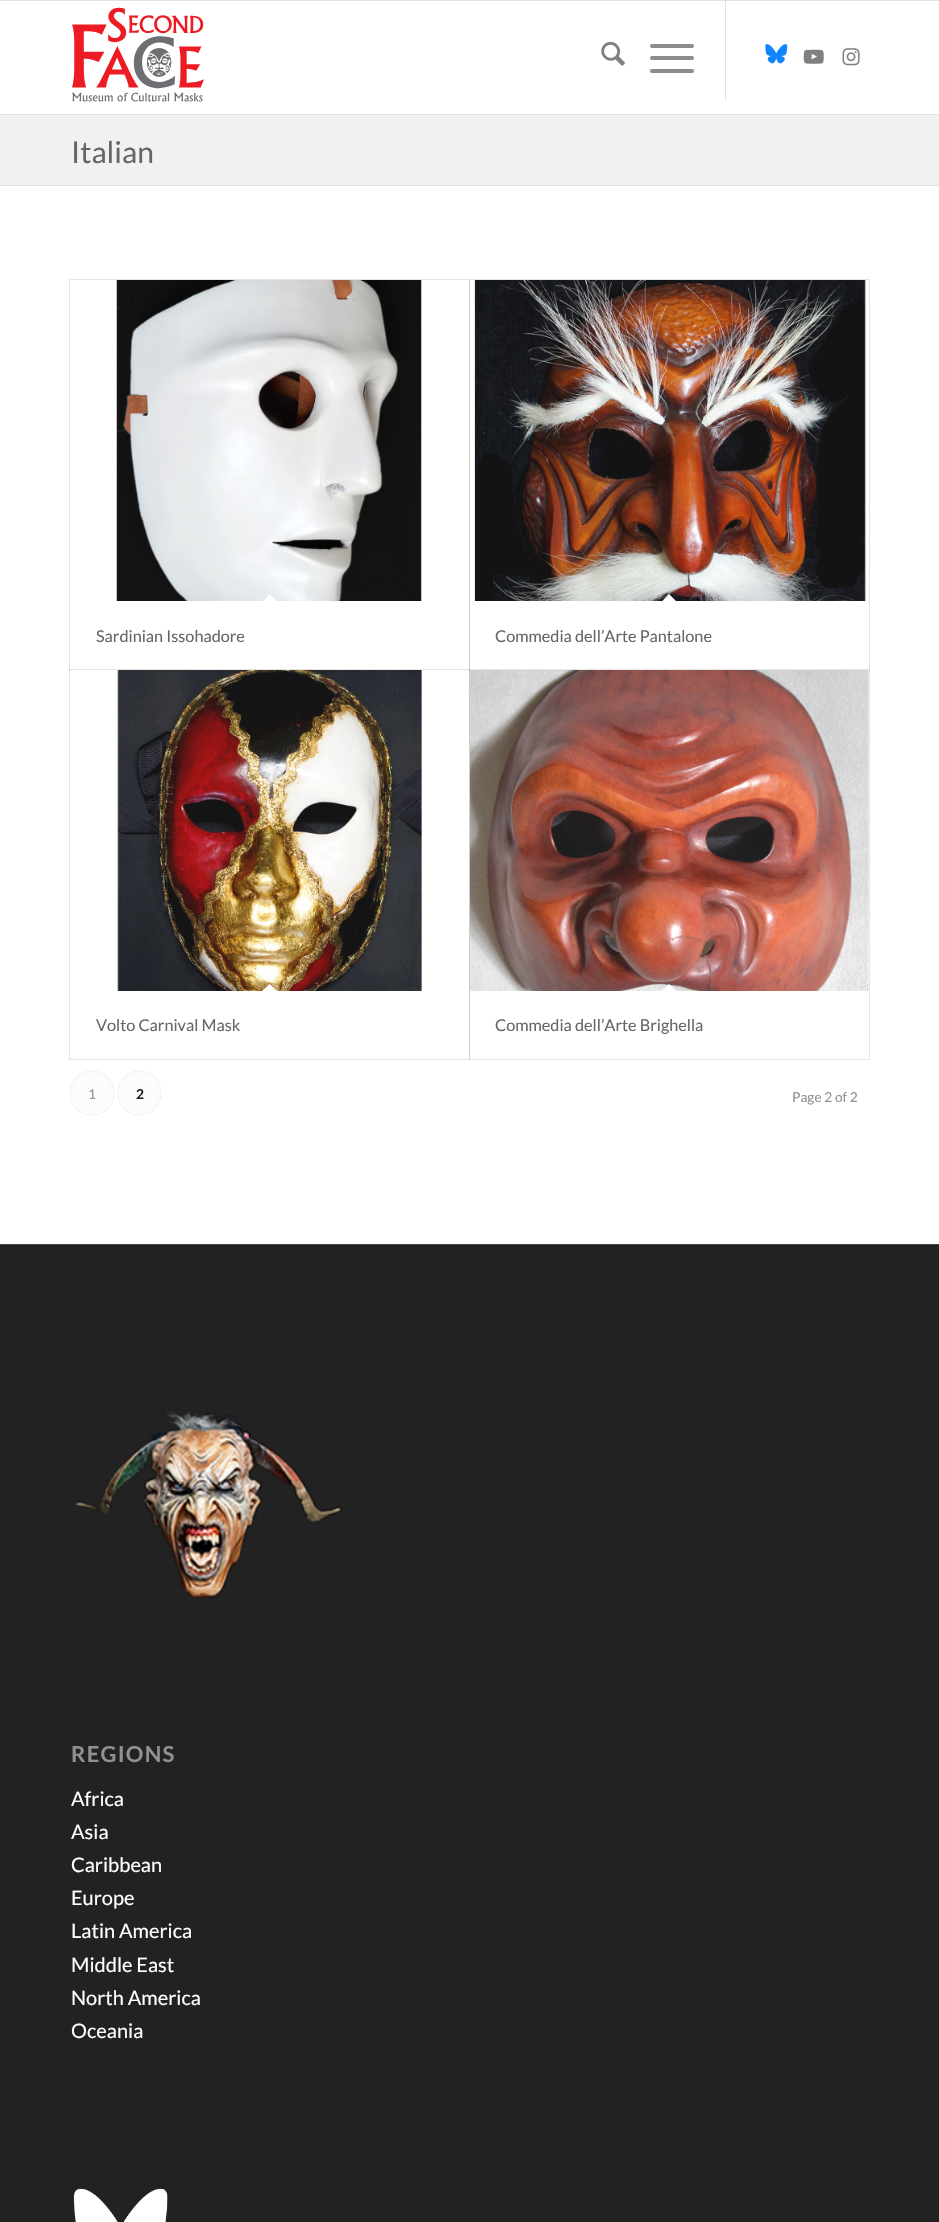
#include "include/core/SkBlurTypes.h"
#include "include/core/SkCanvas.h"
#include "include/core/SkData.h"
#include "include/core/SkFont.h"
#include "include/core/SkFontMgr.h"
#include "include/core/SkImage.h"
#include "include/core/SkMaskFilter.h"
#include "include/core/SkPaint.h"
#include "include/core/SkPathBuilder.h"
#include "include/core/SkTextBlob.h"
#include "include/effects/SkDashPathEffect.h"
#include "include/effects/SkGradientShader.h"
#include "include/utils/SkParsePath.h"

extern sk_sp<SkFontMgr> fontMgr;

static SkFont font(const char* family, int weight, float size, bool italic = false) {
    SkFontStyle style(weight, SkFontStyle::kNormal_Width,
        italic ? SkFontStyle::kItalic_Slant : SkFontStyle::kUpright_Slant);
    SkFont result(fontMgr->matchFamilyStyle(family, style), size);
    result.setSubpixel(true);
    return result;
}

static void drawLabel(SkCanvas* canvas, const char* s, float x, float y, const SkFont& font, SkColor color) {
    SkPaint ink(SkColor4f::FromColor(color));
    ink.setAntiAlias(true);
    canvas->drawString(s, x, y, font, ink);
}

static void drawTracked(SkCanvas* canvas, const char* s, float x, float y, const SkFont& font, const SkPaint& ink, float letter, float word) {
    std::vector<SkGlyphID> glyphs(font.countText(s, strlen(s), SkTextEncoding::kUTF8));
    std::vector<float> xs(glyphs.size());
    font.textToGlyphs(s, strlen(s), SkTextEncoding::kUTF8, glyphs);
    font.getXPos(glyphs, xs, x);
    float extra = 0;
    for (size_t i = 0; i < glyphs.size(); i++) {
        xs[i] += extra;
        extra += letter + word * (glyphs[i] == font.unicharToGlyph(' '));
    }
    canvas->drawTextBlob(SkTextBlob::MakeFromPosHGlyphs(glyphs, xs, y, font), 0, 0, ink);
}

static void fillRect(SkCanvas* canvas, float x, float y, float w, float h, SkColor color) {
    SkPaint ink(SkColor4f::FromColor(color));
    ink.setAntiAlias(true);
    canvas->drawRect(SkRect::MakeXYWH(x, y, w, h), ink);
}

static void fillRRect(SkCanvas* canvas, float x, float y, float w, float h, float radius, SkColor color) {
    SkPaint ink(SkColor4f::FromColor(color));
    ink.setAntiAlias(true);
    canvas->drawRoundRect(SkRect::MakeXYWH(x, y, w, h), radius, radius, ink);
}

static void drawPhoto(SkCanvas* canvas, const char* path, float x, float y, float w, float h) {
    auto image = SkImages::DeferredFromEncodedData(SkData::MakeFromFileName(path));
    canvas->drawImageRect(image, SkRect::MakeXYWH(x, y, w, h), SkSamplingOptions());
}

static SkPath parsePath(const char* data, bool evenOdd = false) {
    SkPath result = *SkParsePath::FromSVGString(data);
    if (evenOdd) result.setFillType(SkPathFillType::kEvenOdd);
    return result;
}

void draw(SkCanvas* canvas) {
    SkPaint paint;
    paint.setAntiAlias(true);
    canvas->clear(0xFFFFFFFF);
    fillRect(canvas, 0, 0, 939, 1, 0xFFE1E1E1);
    fillRect(canvas, 0, 114, 939, 1, 0xFFE1E1E1);
    drawPhoto(canvas, "assets/img1.png", 72, 7, 132, 95);
    fillRect(canvas, 725, 1, 1, 100, 0xFFE1E1E1);
    drawPhoto(canvas, "assets/img2.png", 601, 41, 24, 25);
    fillRRect(canvas, 650, 56, 44, 4, 2, 0xFF8B8B8B);
    fillRRect(canvas, 650, 44, 44, 4, 2, 0xFF8B8B8B);
    fillRRect(canvas, 650, 69, 44, 4, 2, 0xFF8B8B8B);
    drawPhoto(canvas, "assets/img3.png", 765, 44, 23, 20);
    drawPhoto(canvas, "assets/img4.png", 803, 49, 21, 15);
    drawPhoto(canvas, "assets/img5.png", 842, 48, 18, 18);
    fillRect(canvas, 0, 115, 939, 70, 0xFFF1F1F1);
    SkFont font1 = font("Lato", 400, 30);
    drawLabel(canvas, "Italian", 71, 163, font1, 0xFF666666);
    fillRect(canvas, 0, 185, 939, 1, 0xFFE1E1E1);
    paint.setStroke(true);
    paint.setStrokeWidth(1);
    paint.setColor(0xFFE6E6E6);
    canvas->drawRect(SkRect::MakeXYWH(69.5f, 279.5f, 400, 391), paint);
    drawPhoto(canvas, "assets/img6.png", 116, 280, 306, 321);
    paint.setStroke(false);
    paint.setColor(0xFFFFFFFF);
    canvas->drawPath(parsePath("M269.5 594L278.5 603L269.5 612L261 603Z"), paint);
    SkFont font2 = font("Lato", 400, 16.25f);
    drawLabel(canvas, "Sardinian Issohadore", 96, 642, font2, 0xFF666666);
    paint.setStroke(true);
    paint.setColor(0x1A000000);
    canvas->drawRect(SkRect::MakeXYWH(469.5f, 279.5f, 400, 391), paint);
    drawPhoto(canvas, "assets/img7.png", 474, 280, 392, 321);
    paint.setStroke(false);
    paint.setColor(0xFFFFFFFF);
    canvas->drawPath(parsePath("M669 594L678 603L669 612L660.5 603Z"), paint);
    drawLabel(canvas, "Commedia dell’Arte Pantalone", 495, 642, font2, 0xFF666666);
    paint.setStroke(true);
    paint.setColor(0x1A000000);
    canvas->drawRect(SkRect::MakeXYWH(69.5f, 669.5f, 400, 390), paint);
    fillRect(canvas, 70, 670, 399, 1, 0xFFFFFFFF);
    drawPhoto(canvas, "assets/img8.png", 117, 670, 305, 321);
    paint.setStroke(false);
    paint.setColor(0xFFFFFFFF);
    canvas->drawPath(parsePath("M269.5 984L278.5 992.5L269.5 1001.5L261 992.5Z"), paint);
    drawLabel(canvas, "Volto Carnival Mask", 96, 1031, font2, 0xFF666666);
    paint.setStroke(true);
    paint.setColor(0x1A000000);
    canvas->drawRect(SkRect::MakeXYWH(469.5f, 669.5f, 400, 390), paint);
    fillRect(canvas, 470, 670, 399, 1, 0xFFFFFFFF);
    drawPhoto(canvas, "assets/img9.png", 470, 670, 399, 321);
    paint.setStroke(false);
    paint.setColor(0xFFFFFFFF);
    canvas->drawPath(parsePath("M669 984L678 992.5L669 1001.5L660.5 992.5Z"), paint);
    drawLabel(canvas, "Commedia dell’Arte Brighella", 495, 1031, font2, 0xFF666666);
    paint.setColor(0x33000000);
    paint.setMaskFilter(SkMaskFilter::MakeBlur(kNormal_SkBlurStyle, 0.5f));
    canvas->drawRoundRect(SkRect::MakeXYWH(70, 1071, 44, 44), 22, 22, paint);
    paint.setMaskFilter(nullptr);
    paint.setColor(0xFFFCFCFC);
    canvas->drawCircle(92, 1093, 22, paint);
    SkFont font3 = font("Lato", 400, 13.75f);
    drawLabel(canvas, "1", 88, 1099, font3, 0xFF919191);
    paint.setColor(0x33000000);
    paint.setMaskFilter(SkMaskFilter::MakeBlur(kNormal_SkBlurStyle, 0.5f));
    canvas->drawRoundRect(SkRect::MakeXYWH(118, 1071, 43, 44), 21.5f, 21.5f, paint);
    paint.setMaskFilter(nullptr);
    fillRRect(canvas, 118, 1071, 43, 44, 21.5f, 0xFFFCFCFC);
    SkFont font4 = font("Lato", 700, 13.75f);
    drawLabel(canvas, "2", 136, 1099, font4, 0xFF222222);
    drawLabel(canvas, "Page 2 of 2", 792, 1102, font3, 0xFF919191);
    fillRect(canvas, 0, 1245, 939, 977, 0xFF222222);
    fillRect(canvas, 0, 1244, 939, 1, 0xFF444444);
    drawPhoto(canvas, "assets/img10.png", 75, 1411, 268, 188);
    SkFont font5 = font("Lato", 700, 22);
    paint.setColor(0xFF919191);
    drawTracked(canvas, "REGIONS", 71, 1762, font5, paint, 1.25f, 0);
    SkFont font6 = font("Lato", 400, 20);
    drawLabel(canvas, "Africa", 71, 1806, font6, 0xFFFFFFFF);
    drawLabel(canvas, "Asia", 71, 1839, font6, 0xFFFFFFFF);
    drawLabel(canvas, "Caribbean", 71, 1872, font6, 0xFFFFFFFF);
    drawLabel(canvas, "Europe", 71, 1905, font6, 0xFFFFFFFF);
    drawLabel(canvas, "Latin America", 71, 1938, font6, 0xFFFFFFFF);
    drawLabel(canvas, "Middle East", 71, 1972, font6, 0xFFFFFFFF);
    drawLabel(canvas, "North America", 71, 2005, font6, 0xFFFFFFFF);
    drawLabel(canvas, "Oceania", 71, 2038, font6, 0xFFFFFFFF);
    drawPhoto(canvas, "assets/img11.png", 73, 2188, 95, 34);
}
